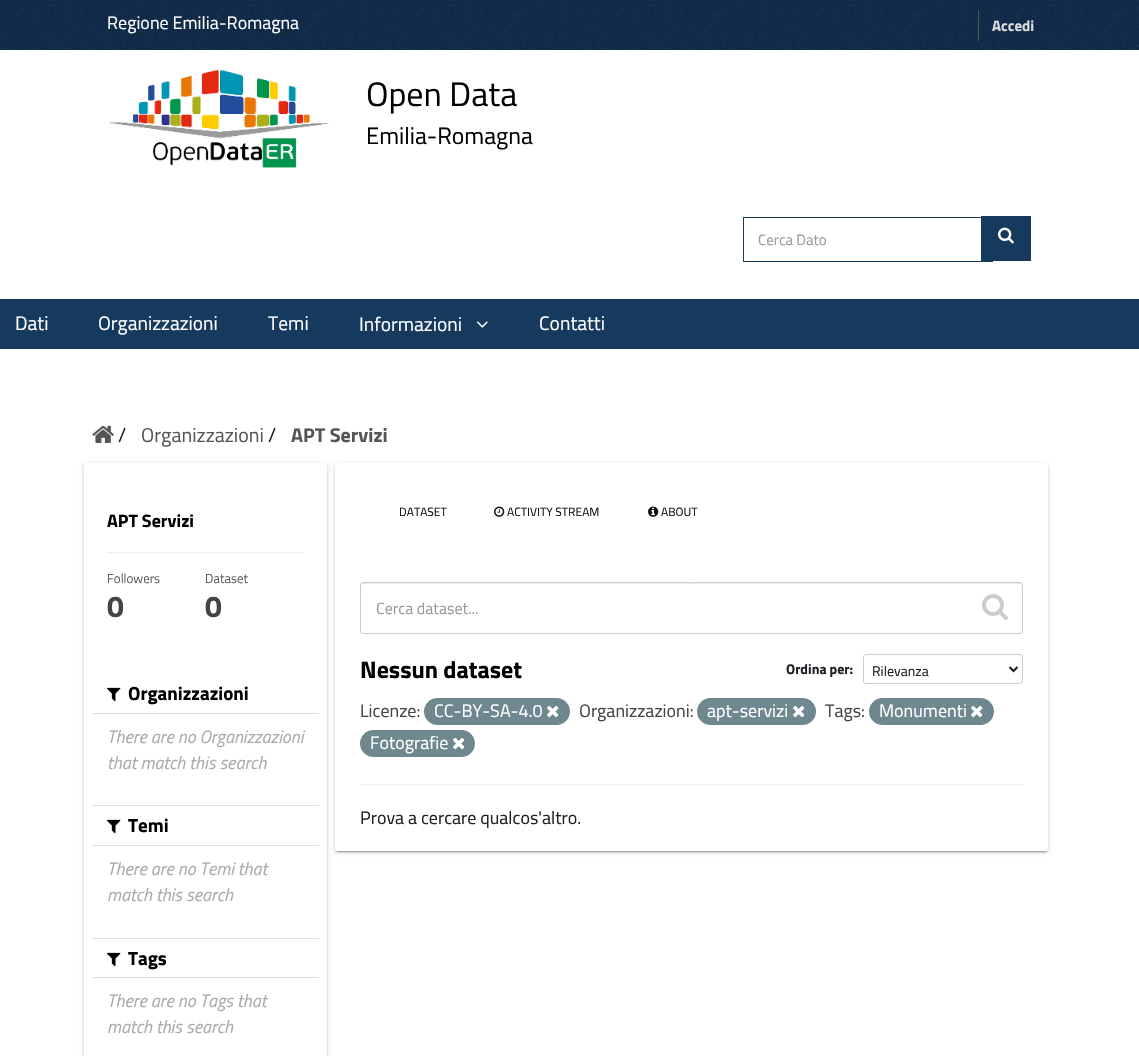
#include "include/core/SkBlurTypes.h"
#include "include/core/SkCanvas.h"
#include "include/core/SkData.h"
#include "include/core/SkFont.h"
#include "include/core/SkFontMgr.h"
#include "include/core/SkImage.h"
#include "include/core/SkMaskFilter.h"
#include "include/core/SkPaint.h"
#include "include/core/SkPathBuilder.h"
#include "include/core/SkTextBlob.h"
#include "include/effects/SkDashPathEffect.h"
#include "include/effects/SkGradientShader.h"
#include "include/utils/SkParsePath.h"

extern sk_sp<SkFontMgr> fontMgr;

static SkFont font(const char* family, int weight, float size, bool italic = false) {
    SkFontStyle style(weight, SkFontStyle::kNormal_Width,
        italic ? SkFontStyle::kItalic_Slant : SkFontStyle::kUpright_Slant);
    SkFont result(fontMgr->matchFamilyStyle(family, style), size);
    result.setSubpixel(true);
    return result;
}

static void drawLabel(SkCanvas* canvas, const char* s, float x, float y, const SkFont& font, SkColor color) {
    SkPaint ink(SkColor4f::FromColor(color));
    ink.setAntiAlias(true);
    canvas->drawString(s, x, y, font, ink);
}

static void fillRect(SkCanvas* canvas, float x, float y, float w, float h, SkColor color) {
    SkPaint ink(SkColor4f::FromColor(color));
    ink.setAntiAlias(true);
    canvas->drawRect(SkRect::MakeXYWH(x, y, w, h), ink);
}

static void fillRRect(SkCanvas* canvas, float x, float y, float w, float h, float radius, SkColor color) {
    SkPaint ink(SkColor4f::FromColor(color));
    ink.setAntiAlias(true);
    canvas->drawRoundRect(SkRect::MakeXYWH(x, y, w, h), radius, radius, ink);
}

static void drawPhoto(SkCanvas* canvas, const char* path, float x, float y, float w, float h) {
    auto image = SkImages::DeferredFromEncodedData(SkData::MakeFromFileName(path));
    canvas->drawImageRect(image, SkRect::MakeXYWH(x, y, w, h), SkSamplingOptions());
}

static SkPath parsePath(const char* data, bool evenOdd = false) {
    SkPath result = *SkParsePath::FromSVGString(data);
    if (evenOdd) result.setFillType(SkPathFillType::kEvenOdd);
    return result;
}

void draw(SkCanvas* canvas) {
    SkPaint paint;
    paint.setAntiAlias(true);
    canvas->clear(0xFFFFFFFF);
    fillRect(canvas, 0, 0, 1139, 50, 0xFF0F2A48);
    drawPhoto(canvas, "assets/img1.png", 0, 0, 1139, 50);
    SkFont font1 = font("Titillium Web", 400, 18);
    drawLabel(canvas, "Regione Emilia-Romagna", 107, 29, font1, 0xFFFFFFFF);
    fillRect(canvas, 978, 10, 1, 31, 0xFF555555);
    SkFont font2 = font("Titillium Web", 700, 15);
    drawLabel(canvas, "Accedi", 992, 31, font2, 0xFFDDDDDD);
    drawPhoto(canvas, "assets/img2.png", 108, 69, 221, 99);
    SkFont font3 = font("Titillium Web", 400, 34);
    drawLabel(canvas, "Open Data", 366, 106, font3, 0xFF000000);
    SkFont font4 = font("Titillium Web", 400, 23.75f);
    drawLabel(canvas, "Emilia-Romagna", 366, 144, font4, 0xFF000000);
    paint.setStroke(true);
    paint.setStrokeWidth(1);
    paint.setColor(0xFF16395E);
    canvas->drawRect(SkRect::MakeXYWH(743.5f, 217.5f, 249, 44), paint);
    SkFont font5 = font("Titillium Web", 400, 15);
    drawLabel(canvas, "Cerca Dato", 758, 245, font5, 0xFF999999);
    fillRect(canvas, 981, 216, 50, 45, 0xFF16395E);
    drawPhoto(canvas, "assets/img3.png", 998, 227, 16, 17);
    fillRect(canvas, 0, 299, 1139, 50, 0xFF16395E);
    SkFont font6 = font("Titillium Web", 400, 19.5f);
    drawLabel(canvas, "Dati", 15, 330, font6, 0xFFFFFFFF);
    drawLabel(canvas, "Organizzazioni", 98, 330, font6, 0xFFFFFFFF);
    drawLabel(canvas, "Temi", 268, 330, font6, 0xFFFFFFFF);
    drawLabel(canvas, "Informazioni", 359, 331, font6, 0xFFFFFFFF);
    drawPhoto(canvas, "assets/img4.png", 476, 321, 12, 7);
    drawLabel(canvas, "Contatti", 539, 330, font6, 0xFFFFFFFF);
    drawPhoto(canvas, "assets/img5.png", 92, 425, 22, 18);
    SkFont font7 = font("Titillium Web", 400, 20);
    drawLabel(canvas, "/", 118, 442, font7, 0xFF1C2024);
    drawLabel(canvas, "Organizzazioni", 141, 442, font7, 0xFF555555);
    drawLabel(canvas, "/", 268, 442, font7, 0xFF1C2024);
    SkFont font8 = font("Titillium Web", 700, 20);
    drawLabel(canvas, "APT Servizi", 291, 442, font8, 0xFF555555);
    paint.setStroke(false);
    paint.setColor(0x1F000000);
    paint.setMaskFilter(SkMaskFilter::MakeBlur(kNormal_SkBlurStyle, 2.5f));
    canvas->drawRoundRect(SkRect::MakeXYWH(335, 464, 713, 388), 3, 3, paint);
    paint.setMaskFilter(nullptr);
    paint.setColor(0x33000000);
    paint.setMaskFilter(SkMaskFilter::MakeBlur(kNormal_SkBlurStyle, 0.5f));
    canvas->drawRoundRect(SkRect::MakeXYWH(337, 468, 709, 384), 1, 1, paint);
    paint.setMaskFilter(nullptr);
    paint.setColor(0x24000000);
    paint.setMaskFilter(SkMaskFilter::MakeBlur(kNormal_SkBlurStyle, 1));
    canvas->drawRoundRect(SkRect::MakeXYWH(335, 465, 713, 388), 3, 3, paint);
    paint.setMaskFilter(nullptr);
    fillRRect(canvas, 335, 463, 713, 388, 3, 0xFFFFFFFF);
    paint.setColor(0xFFFFFFFF);
    canvas->drawPath(parsePath("M335 463H1045C1046.5 463 1048 464.5 1048 466V562H335Z"), paint);
    canvas->save();
    canvas->clipPath(parsePath("M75 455H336V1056H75ZM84 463H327V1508H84Z", true), true);
    paint.setColor(0x1F000000);
    paint.setMaskFilter(SkMaskFilter::MakeBlur(kNormal_SkBlurStyle, 2.5f));
    canvas->drawRect(SkRect::MakeXYWH(84, 464, 243, 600), paint);
    paint.setMaskFilter(nullptr);
    canvas->restore();
    canvas->save();
    canvas->clipPath(parsePath("M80 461H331V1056H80ZM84 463H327V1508H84Z", true), true);
    paint.setColor(0x24000000);
    paint.setMaskFilter(SkMaskFilter::MakeBlur(kNormal_SkBlurStyle, 1));
    canvas->drawRect(SkRect::MakeXYWH(84, 465, 243, 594), paint);
    paint.setMaskFilter(nullptr);
    canvas->restore();
    SkFont font9 = font("Titillium Web", 700, 18);
    drawLabel(canvas, "APT Servizi", 107, 527, font9, 0xFF000000);
    paint.setStroke(true);
    paint.setColor(0xFFDDDDDD);
    paint.setPathEffect(SkDashPathEffect::Make({{1, 1}}, 0));
    canvas->drawPath(parsePath("M107 552.5H304"), paint);
    paint.setPathEffect(nullptr);
    SkFont font10 = font("Titillium Web", 300, 13);
    drawLabel(canvas, "Followers", 107, 583, font10, 0xFF444444);
    SkFont font11 = font("Titillium Web", 700, 30);
    drawLabel(canvas, "0", 107, 617, font11, 0xFF444444);
    drawLabel(canvas, "Dataset", 205, 583, font10, 0xFF444444);
    drawLabel(canvas, "0", 205, 617, font11, 0xFF444444);
    fillRect(canvas, 92, 713, 227, 1, 0xFFDDDDDD);
    drawPhoto(canvas, "assets/img6.png", 107, 687, 14, 15);
    SkFont font12 = font("Titillium Web", 700, 19);
    drawLabel(canvas, "Organizzazioni", 128, 700, font12, 0xFF000000);
    SkFont font13 = font("Titillium Web", 400, 18, true);
    drawLabel(canvas, "There are no Organizzazioni", 107, 743, font13, 0xFFAAAAAA);
    drawLabel(canvas, "that match this search", 107, 769, font13, 0xFFAAAAAA);
    fillRect(canvas, 92, 805, 227, 1, 0xFFDDDDDD);
    fillRect(canvas, 92, 845, 227, 1, 0xFFDDDDDD);
    drawPhoto(canvas, "assets/img6.png", 107, 819, 14, 15);
    drawLabel(canvas, "Temi", 128, 832, font12, 0xFF000000);
    drawLabel(canvas, "There are no Temi that", 107, 875, font13, 0xFFAAAAAA);
    drawLabel(canvas, "match this search", 107, 901, font13, 0xFFAAAAAA);
    fillRect(canvas, 92, 938, 227, 1, 0xFFDDDDDD);
    fillRect(canvas, 92, 977, 227, 1, 0xFFDDDDDD);
    drawPhoto(canvas, "assets/img6.png", 107, 952, 14, 15);
    drawLabel(canvas, "Tags", 128, 965, font12, 0xFF000000);
    drawLabel(canvas, "There are no Tags that", 107, 1007, font13, 0xFFAAAAAA);
    drawLabel(canvas, "match this search", 107, 1033, font13, 0xFFAAAAAA);
    SkFont font14 = font("Titillium Web", 400, 12);
    drawLabel(canvas, "DATASET", 399, 516, font14, 0xFF111111);
    drawPhoto(canvas, "assets/img7.png", 494, 506, 11, 11);
    drawLabel(canvas, "ACTIVITY STREAM", 507, 516, font14, 0xFF111111);
    drawPhoto(canvas, "assets/img8.png", 648, 506, 11, 11);
    drawLabel(canvas, "ABOUT", 661, 516, font14, 0xFF111111);
    paint.setPathEffect(SkDashPathEffect::Make({{1, 1}}, 0));
    canvas->drawPath(parsePath("M360 784.5H1023"), paint);
    paint.setPathEffect(nullptr);
    paint.setStroke(false);
    paint.setColor(0xFFECECEC);
    canvas->drawPath(parsePath("M363 584H1020C1021 584 1022 585 1022 586C1022 585 1022 583 1020 583H363C361 583 361 585 361 586C361 585 362 584 363 584Z"), paint);
    paint.setStroke(true);
    paint.setColor(0xFFCCCCCC);
    canvas->drawRoundRect(SkRect::MakeXYWH(360.5f, 582.5f, 662, 51), 2.5f, 2.5f, paint);
    SkFont font15 = font("Titillium Web", 400, 16);
    drawLabel(canvas, "Cerca dataset...", 376, 614, font15, 0xFF999999);
    drawPhoto(canvas, "assets/img9.png", 982, 594, 26, 26);
    SkFont font16 = font("Titillium Web", 700, 24);
    drawLabel(canvas, "Nessun dataset", 360, 678, font16, 0xFF000000);
    SkFont font17 = font("Titillium Web", 700, 14);
    drawLabel(canvas, "Ordina per:", 786, 674, font17, 0xFF1C2024);
    canvas->drawRoundRect(SkRect::MakeXYWH(863.5f, 654.5f, 159, 29), 2.5f, 2.5f, paint);
    paint.setStrokeWidth(2);
    paint.setColor(0xFF1C2024);
    canvas->drawPath(parsePath("M1009.5 667L1013.5 671L1017.5 667"), paint);
    SkFont font18 = font("Titillium Web", 400, 14);
    drawLabel(canvas, "Rilevanza", 872, 676, font18, 0xFF1C2024);
    drawLabel(canvas, "Licenze:", 360, 717, font1, 0xFF444444);
    fillRRect(canvas, 424, 698, 146, 27, 13.5f, 0xFF6F8890);
    drawLabel(canvas, "CC-BY-SA-4.0", 434, 717, font1, 0xFFFFFFFF);
    drawPhoto(canvas, "assets/img10.png", 547, 706, 12, 12);
    drawLabel(canvas, "Organizzazioni:", 579, 717, font1, 0xFF444444);
    fillRRect(canvas, 697, 698, 119, 27, 13.5f, 0xFF6F8890);
    drawLabel(canvas, "apt-servizi", 707, 717, font1, 0xFFFFFFFF);
    drawPhoto(canvas, "assets/img10.png", 793, 706, 12, 12);
    drawLabel(canvas, "Tags:", 825, 717, font1, 0xFF444444);
    fillRRect(canvas, 869, 698, 125, 27, 13.5f, 0xFF6F8890);
    drawLabel(canvas, "Monumenti", 879, 717, font1, 0xFFFFFFFF);
    drawPhoto(canvas, "assets/img10.png", 971, 706, 12, 12);
    fillRRect(canvas, 360, 730, 115, 27, 13.5f, 0xFF6F8890);
    drawLabel(canvas, "Fotografie", 370, 749, font1, 0xFFFFFFFF);
    drawPhoto(canvas, "assets/img10.png", 453, 738, 12, 12);
    drawLabel(canvas, "Prova a cercare qualcos'altro.", 360, 824, font1, 0xFF1C2024);
}
